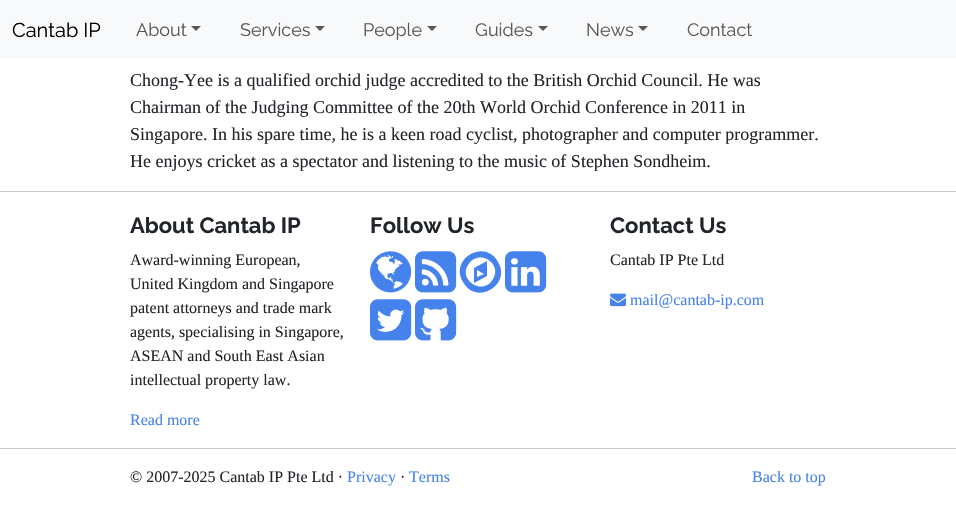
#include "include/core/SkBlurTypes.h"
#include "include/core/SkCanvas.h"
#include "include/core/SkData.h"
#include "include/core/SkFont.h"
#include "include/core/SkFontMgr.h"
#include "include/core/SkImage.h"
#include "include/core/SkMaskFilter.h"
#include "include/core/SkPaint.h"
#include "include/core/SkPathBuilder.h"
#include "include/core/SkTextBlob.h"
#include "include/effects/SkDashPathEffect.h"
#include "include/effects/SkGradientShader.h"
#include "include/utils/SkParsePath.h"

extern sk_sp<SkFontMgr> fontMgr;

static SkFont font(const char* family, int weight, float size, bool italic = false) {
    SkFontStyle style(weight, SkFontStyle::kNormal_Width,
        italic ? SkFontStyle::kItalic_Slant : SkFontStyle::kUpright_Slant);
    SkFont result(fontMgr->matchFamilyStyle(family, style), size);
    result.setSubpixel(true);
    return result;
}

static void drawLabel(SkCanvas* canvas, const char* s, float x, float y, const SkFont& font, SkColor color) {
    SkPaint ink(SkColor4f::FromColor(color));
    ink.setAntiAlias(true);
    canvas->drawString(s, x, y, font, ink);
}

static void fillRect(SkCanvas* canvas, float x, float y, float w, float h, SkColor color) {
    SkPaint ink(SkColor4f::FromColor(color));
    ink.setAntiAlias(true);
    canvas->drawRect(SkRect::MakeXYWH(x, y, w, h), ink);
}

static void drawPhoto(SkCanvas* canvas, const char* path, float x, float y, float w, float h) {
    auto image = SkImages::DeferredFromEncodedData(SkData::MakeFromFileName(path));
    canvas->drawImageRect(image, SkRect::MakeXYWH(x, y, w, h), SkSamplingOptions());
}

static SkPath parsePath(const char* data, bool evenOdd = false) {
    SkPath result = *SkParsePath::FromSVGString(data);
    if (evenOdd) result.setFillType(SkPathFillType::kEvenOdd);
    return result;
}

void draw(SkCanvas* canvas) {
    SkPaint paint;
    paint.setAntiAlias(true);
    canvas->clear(0xFFFFFFFF);
    fillRect(canvas, 0, 0, 956, 59, 0xFFF8F9FA);
    SkFont font1 = font("Raleway", 400, 20);
    drawLabel(canvas, "Cantab IP", 12, 37, font1, 0xFF000000);
    SkFont font2 = font("Raleway", 400, 18);
    drawLabel(canvas, "About", 136, 36, font2, 0xFF575758);
    paint.setColor(0xFF575758);
    canvas->drawPath(parsePath("M191 26H201L196 31Z"), paint);
    drawLabel(canvas, "Services", 240, 36, font2, 0xFF575758);
    canvas->drawPath(parsePath("M315 26H325L320 31Z"), paint);
    drawLabel(canvas, "People", 363, 36, font2, 0xFF575758);
    canvas->drawPath(parsePath("M427 26H437L432 31Z"), paint);
    drawLabel(canvas, "Guides", 475, 36, font2, 0xFF575758);
    canvas->drawPath(parsePath("M538 26H548L543 31Z"), paint);
    drawLabel(canvas, "News", 586, 36, font2, 0xFF575758);
    canvas->drawPath(parsePath("M638 26H648L643 31Z"), paint);
    drawLabel(canvas, "Contact", 687, 36, font2, 0xFF575758);
    SkFont font3 = font("Liberation Serif", 400, 18);
    drawLabel(canvas, "Chong-Yee is a qualified orchid judge accredited to the British Orchid Council. He was", 130, 86, font3, 0xFF212529);
    drawLabel(canvas, "Chairman of the Judging Committee of the 20th World Orchid Conference in 2011 in", 130, 113, font3, 0xFF212529);
    drawLabel(canvas, "Singapore. In his spare time, he is a keen road cyclist, photographer and computer programmer.", 130, 140, font3, 0xFF212529);
    drawLabel(canvas, "He enjoys cricket as a spectator and listening to the music of Stephen Sondheim.", 130, 167, font3, 0xFF212529);
    fillRect(canvas, 0, 191, 956, 1, 0xFFC8C9CA);
    SkFont font4 = font("Raleway", 700, 22);
    drawLabel(canvas, "About Cantab IP", 130, 233, font4, 0xFF212529);
    SkFont font5 = font("Liberation Serif", 400, 16);
    drawLabel(canvas, "Award-winning European,", 130, 265, font5, 0xFF212529);
    drawLabel(canvas, "United Kingdom and Singapore", 130, 289, font5, 0xFF212529);
    drawLabel(canvas, "patent attorneys and trade mark", 130, 313, font5, 0xFF212529);
    drawLabel(canvas, "agents, specialising in Singapore,", 130, 337, font5, 0xFF212529);
    drawLabel(canvas, "ASEAN and South East Asian", 130, 361, font5, 0xFF212529);
    drawLabel(canvas, "intellectual property law.", 130, 385, font5, 0xFF212529);
    drawLabel(canvas, "Read more", 130, 425, font5, 0xFF4582EC);
    drawLabel(canvas, "Follow Us", 370, 233, font4, 0xFF212529);
    drawPhoto(canvas, "assets/img1.png", 370, 251, 42, 42);
    drawPhoto(canvas, "assets/img2.png", 415, 251, 42, 42);
    paint.setColor(0xFF4582EC);
    canvas->drawPath(parsePath("M477 277L484 274L477 270ZM487 261V276L474 283V268ZM493 279C503 263 478 248 468 265C458 281 484 296 493 279ZM498 262C512 285 476 306 463 282C449 259 485 238 498 262Z"), paint);
    drawPhoto(canvas, "assets/img3.png", 505, 251, 42, 42);
    drawPhoto(canvas, "assets/img4.png", 370, 299, 42, 42);
    drawPhoto(canvas, "assets/img5.png", 415, 299, 42, 42);
    drawLabel(canvas, "Contact Us", 610, 233, font4, 0xFF212529);
    drawLabel(canvas, "Cantab IP Pte Ltd", 610, 265, font5, 0xFF212529);
    drawPhoto(canvas, "assets/img6.png", 610, 293, 16, 14);
    drawLabel(canvas, "mail@cantab-ip.com", 630, 305, font5, 0xFF4582EC);
    fillRect(canvas, 0, 448, 956, 1, 0xFFC8C9CA);
    drawLabel(canvas, "© 2007-2025 Cantab IP Pte Ltd ·", 130, 482, font5, 0xFF212529);
    drawLabel(canvas, "Privacy", 347, 482, font5, 0xFF4582EC);
    drawLabel(canvas, "·", 400, 482, font5, 0xFF212529);
    drawLabel(canvas, "Terms", 409, 482, font5, 0xFF4582EC);
    drawLabel(canvas, "Back to top", 752, 482, font5, 0xFF4582EC);
}
